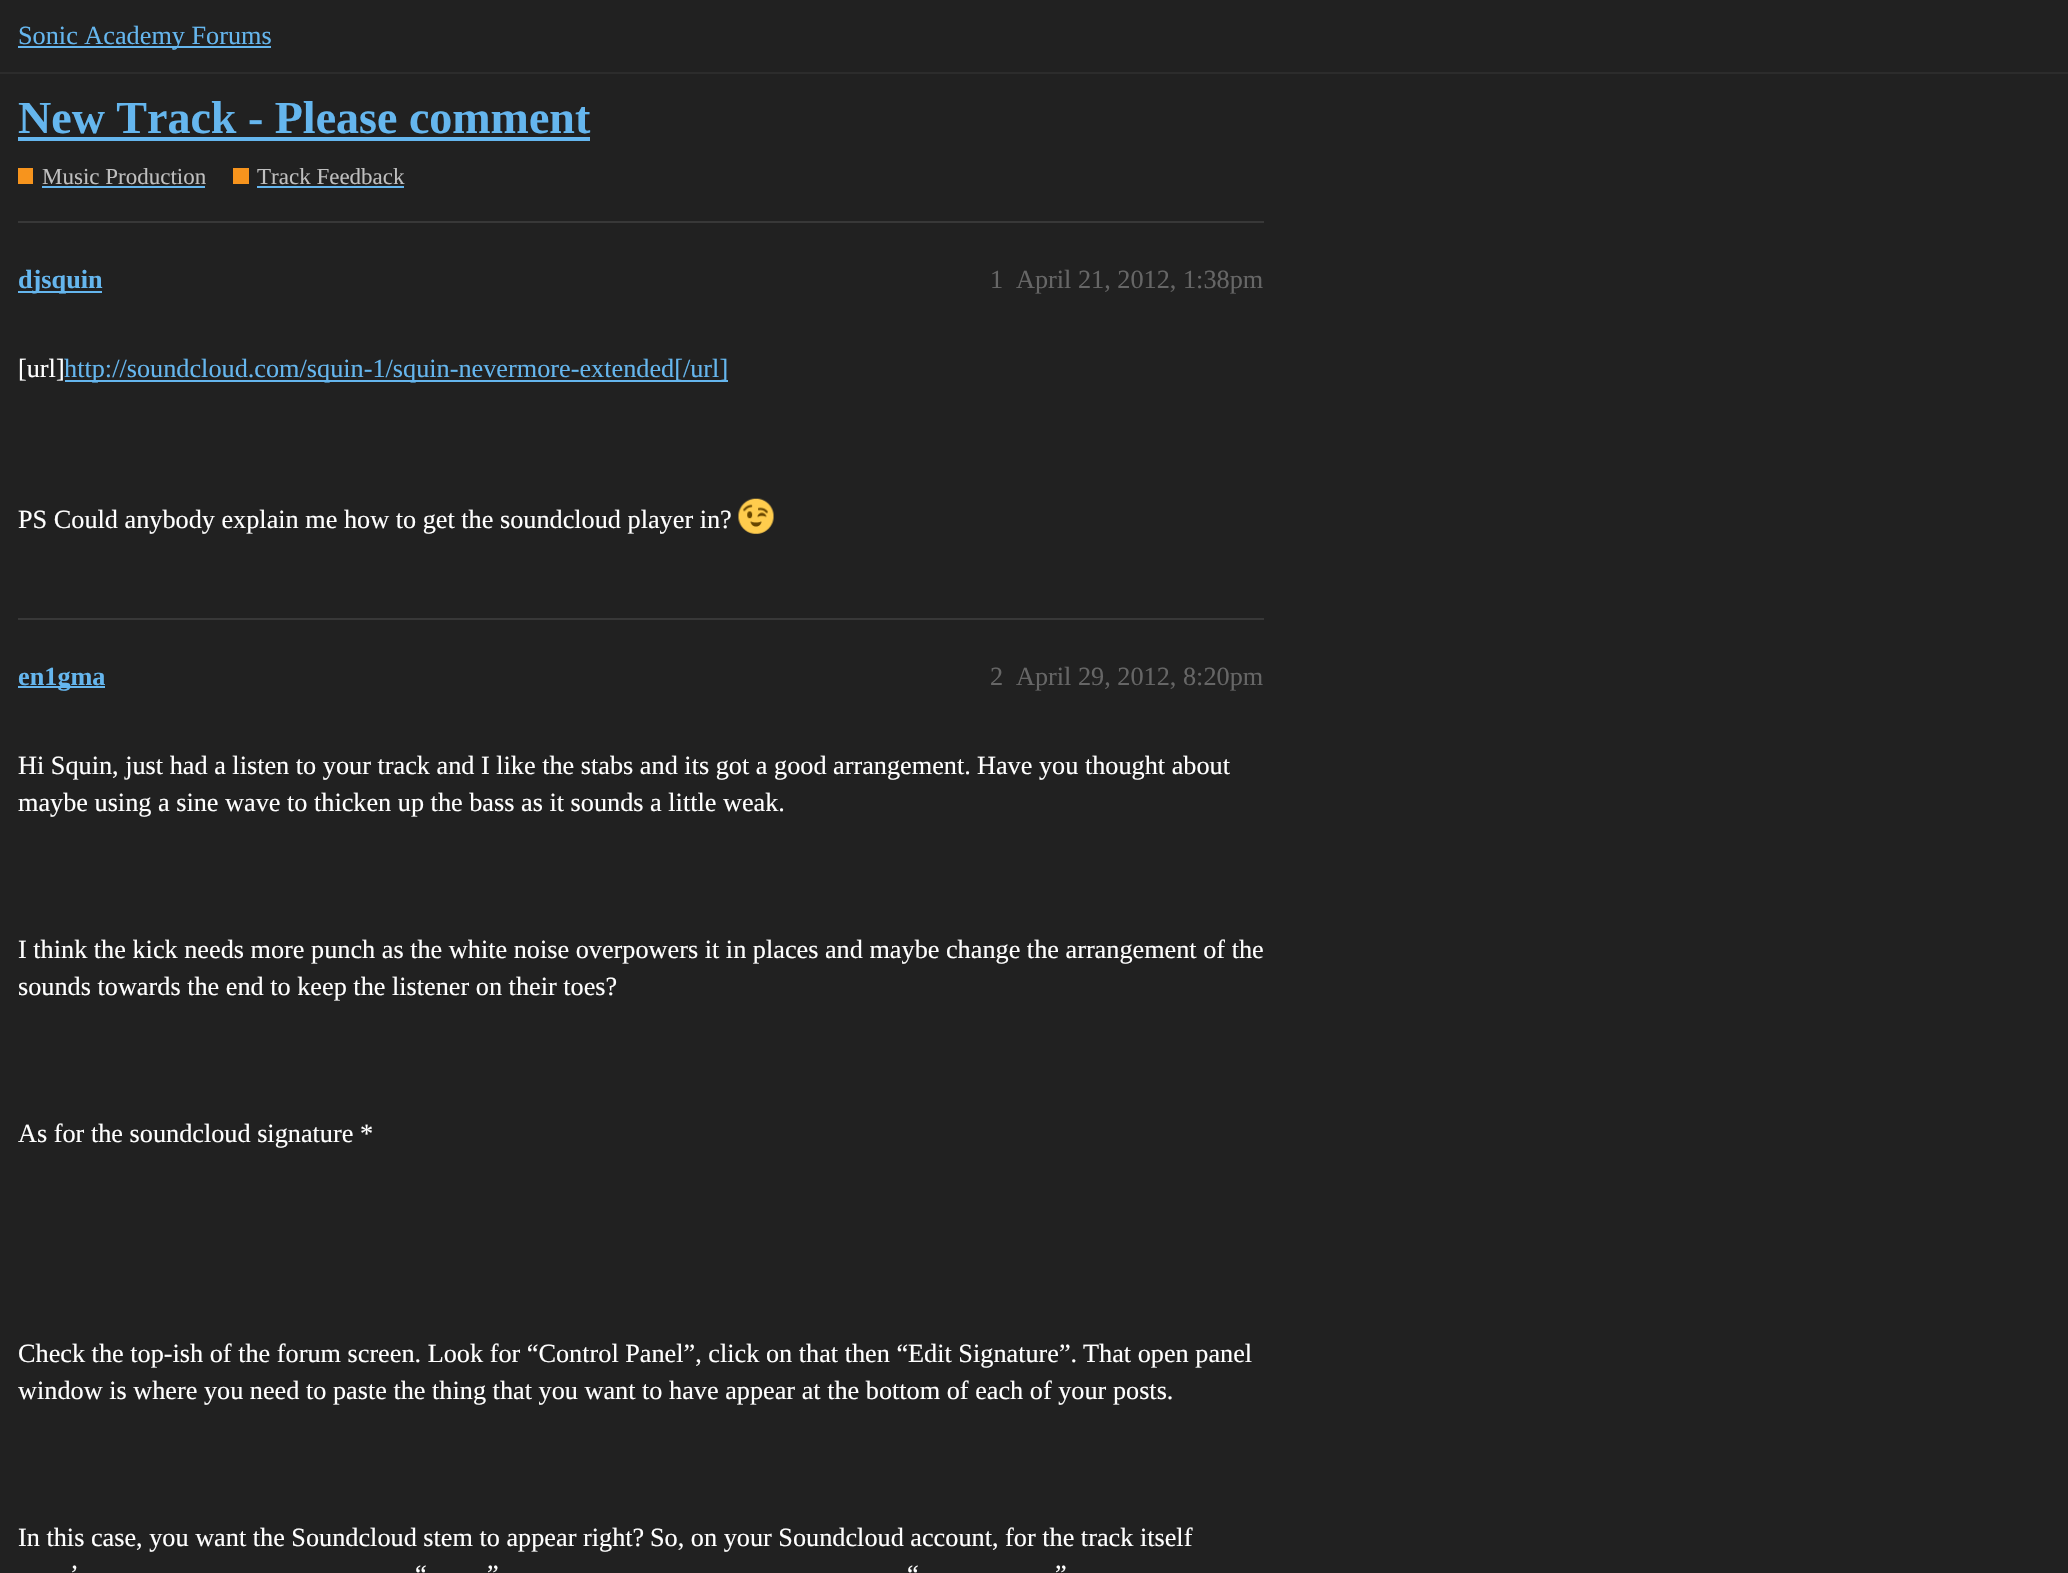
#include "include/core/SkBlurTypes.h"
#include "include/core/SkCanvas.h"
#include "include/core/SkData.h"
#include "include/core/SkFont.h"
#include "include/core/SkFontMgr.h"
#include "include/core/SkImage.h"
#include "include/core/SkMaskFilter.h"
#include "include/core/SkPaint.h"
#include "include/core/SkPathBuilder.h"
#include "include/core/SkTextBlob.h"
#include "include/effects/SkDashPathEffect.h"
#include "include/effects/SkGradientShader.h"
#include "include/utils/SkParsePath.h"

extern sk_sp<SkFontMgr> fontMgr;

static SkFont font(const char* family, int weight, float size, bool italic = false) {
    SkFontStyle style(weight, SkFontStyle::kNormal_Width,
        italic ? SkFontStyle::kItalic_Slant : SkFontStyle::kUpright_Slant);
    SkFont result(fontMgr->matchFamilyStyle(family, style), size);
    result.setSubpixel(true);
    return result;
}

static void drawLabel(SkCanvas* canvas, const char* s, float x, float y, const SkFont& font, SkColor color) {
    SkPaint ink(SkColor4f::FromColor(color));
    ink.setAntiAlias(true);
    canvas->drawString(s, x, y, font, ink);
}

static void fillRect(SkCanvas* canvas, float x, float y, float w, float h, SkColor color) {
    SkPaint ink(SkColor4f::FromColor(color));
    ink.setAntiAlias(true);
    canvas->drawRect(SkRect::MakeXYWH(x, y, w, h), ink);
}

static void drawPhoto(SkCanvas* canvas, const char* path, float x, float y, float w, float h) {
    auto image = SkImages::DeferredFromEncodedData(SkData::MakeFromFileName(path));
    canvas->drawImageRect(image, SkRect::MakeXYWH(x, y, w, h), SkSamplingOptions());
}

void draw(SkCanvas* canvas) {
    SkPaint paint;
    paint.setAntiAlias(true);
    canvas->clear(0xFF212121);
    fillRect(canvas, 0, 72, 2068, 2, 0xFF2C2C2C);
    fillRect(canvas, 18, 46, 253, 2, 0xFF65B6EE);
    SkFont font1 = font("Liberation Serif", 400, 26.25f);
    drawLabel(canvas, "Sonic Academy Forums", 18, 44, font1, 0xFF65B6EE);
    SkFont font2 = font("Liberation Serif", 700, 46);
    drawLabel(canvas, "New Track - Please comment", 18, 133, font2, 0xFF65B6EE);
    fillRect(canvas, 18, 137, 572, 4, 0xFF65B6EE);
    fillRect(canvas, 18, 168, 15, 16, 0xFFF7941D);
    SkFont font3 = font("Liberation Serif", 400, 23);
    drawLabel(canvas, "Music Production", 42, 184, font3, 0xFFBFBFBF);
    fillRect(canvas, 42, 186, 163, 2, 0xFF65B6EE);
    fillRect(canvas, 233, 168, 16, 16, 0xFFF7941D);
    drawLabel(canvas, "Track Feedback", 257, 184, font3, 0xFFBFBFBF);
    fillRect(canvas, 257, 186, 147, 2, 0xFF65B6EE);
    fillRect(canvas, 18, 221, 1246, 2, 0xFF383838);
    fillRect(canvas, 18, 291, 84, 2, 0xFF65B6EE);
    SkFont font4 = font("Liberation Serif", 700, 26.25f);
    drawLabel(canvas, "djsquin", 18, 288, font4, 0xFF65B6EE);
    drawLabel(canvas, "1", 990, 288, font1, 0xFF666666);
    drawLabel(canvas, "April 21, 2012, 1:38pm", 1016, 288, font1, 0xFF666666);
    drawLabel(canvas, "[url]", 18, 377, font1, 0xFFFFFFFF);
    fillRect(canvas, 65, 380, 663, 2, 0xFF65B6EE);
    drawLabel(canvas, "http://soundcloud.com/squin-1/squin-nevermore-extended[/url]", 64, 377, font1, 0xFF65B6EE);
    drawLabel(canvas, "PS Could anybody explain me how to get the soundcloud player in?", 18, 528, font1, 0xFFFFFFFF);
    drawPhoto(canvas, "assets/img1.png", 738, 498, 36, 36);
    fillRect(canvas, 18, 618, 1246, 2, 0xFF383838);
    fillRect(canvas, 18, 686, 87, 2, 0xFF65B6EE);
    drawLabel(canvas, "en1gma", 18, 685, font4, 0xFF65B6EE);
    drawLabel(canvas, "2", 990, 685, font1, 0xFF666666);
    drawLabel(canvas, "April 29, 2012, 8:20pm", 1016, 685, font1, 0xFF666666);
    drawLabel(canvas, "Hi Squin, just had a listen to your track and I like the stabs and its got a good arrangement.", 18, 774, font1, 0xFFFFFFFF);
    drawLabel(canvas, "Have you thought about", 977, 774, font1, 0xFFFFFFFF);
    drawLabel(canvas, "maybe using a sine wave to thicken up the bass as it sounds a little weak.", 18, 811, font1, 0xFFFFFFFF);
    drawLabel(canvas, "I think the kick needs more punch as the white noise overpowers it in places and maybe change the arrangement of the", 18, 958, font1, 0xFFFFFFFF);
    drawLabel(canvas, "sounds towards the end to keep the listener on their toes?", 18, 995, font1, 0xFFFFFFFF);
    drawLabel(canvas, "As for the soundcloud signature *", 18, 1142, font1, 0xFFFFFFFF);
    drawLabel(canvas, "Check the top-ish of the forum screen. Look for “Control Panel”, click on that then “Edit Signature”.", 18, 1362, font1, 0xFFFFFFFF);
    drawLabel(canvas, "That open panel", 1083, 1362, font1, 0xFFFFFFFF);
    drawLabel(canvas, "window is where you need to paste the thing that you want to have appear at the bottom of each of your posts.", 18, 1399, font1, 0xFFFFFFFF);
    drawLabel(canvas, "In this case, you want the Soundcloud stem to appear right?", 18, 1546, font1, 0xFFFFFFFF);
    drawLabel(canvas, "So, on your Soundcloud account, for the track itself", 650, 1546, font1, 0xFFFFFFFF);
    drawLabel(canvas, "’", 70, 1583, font1, 0xFFFFFFFF);
    drawLabel(canvas, "“", 415, 1583, font1, 0xFFFFFFFF);
    drawLabel(canvas, "”", 487, 1583, font1, 0xFFFFFFFF);
    drawLabel(canvas, "“", 907, 1583, font1, 0xFFFFFFFF);
    drawLabel(canvas, "”", 1055, 1583, font1, 0xFFFFFFFF);
}
